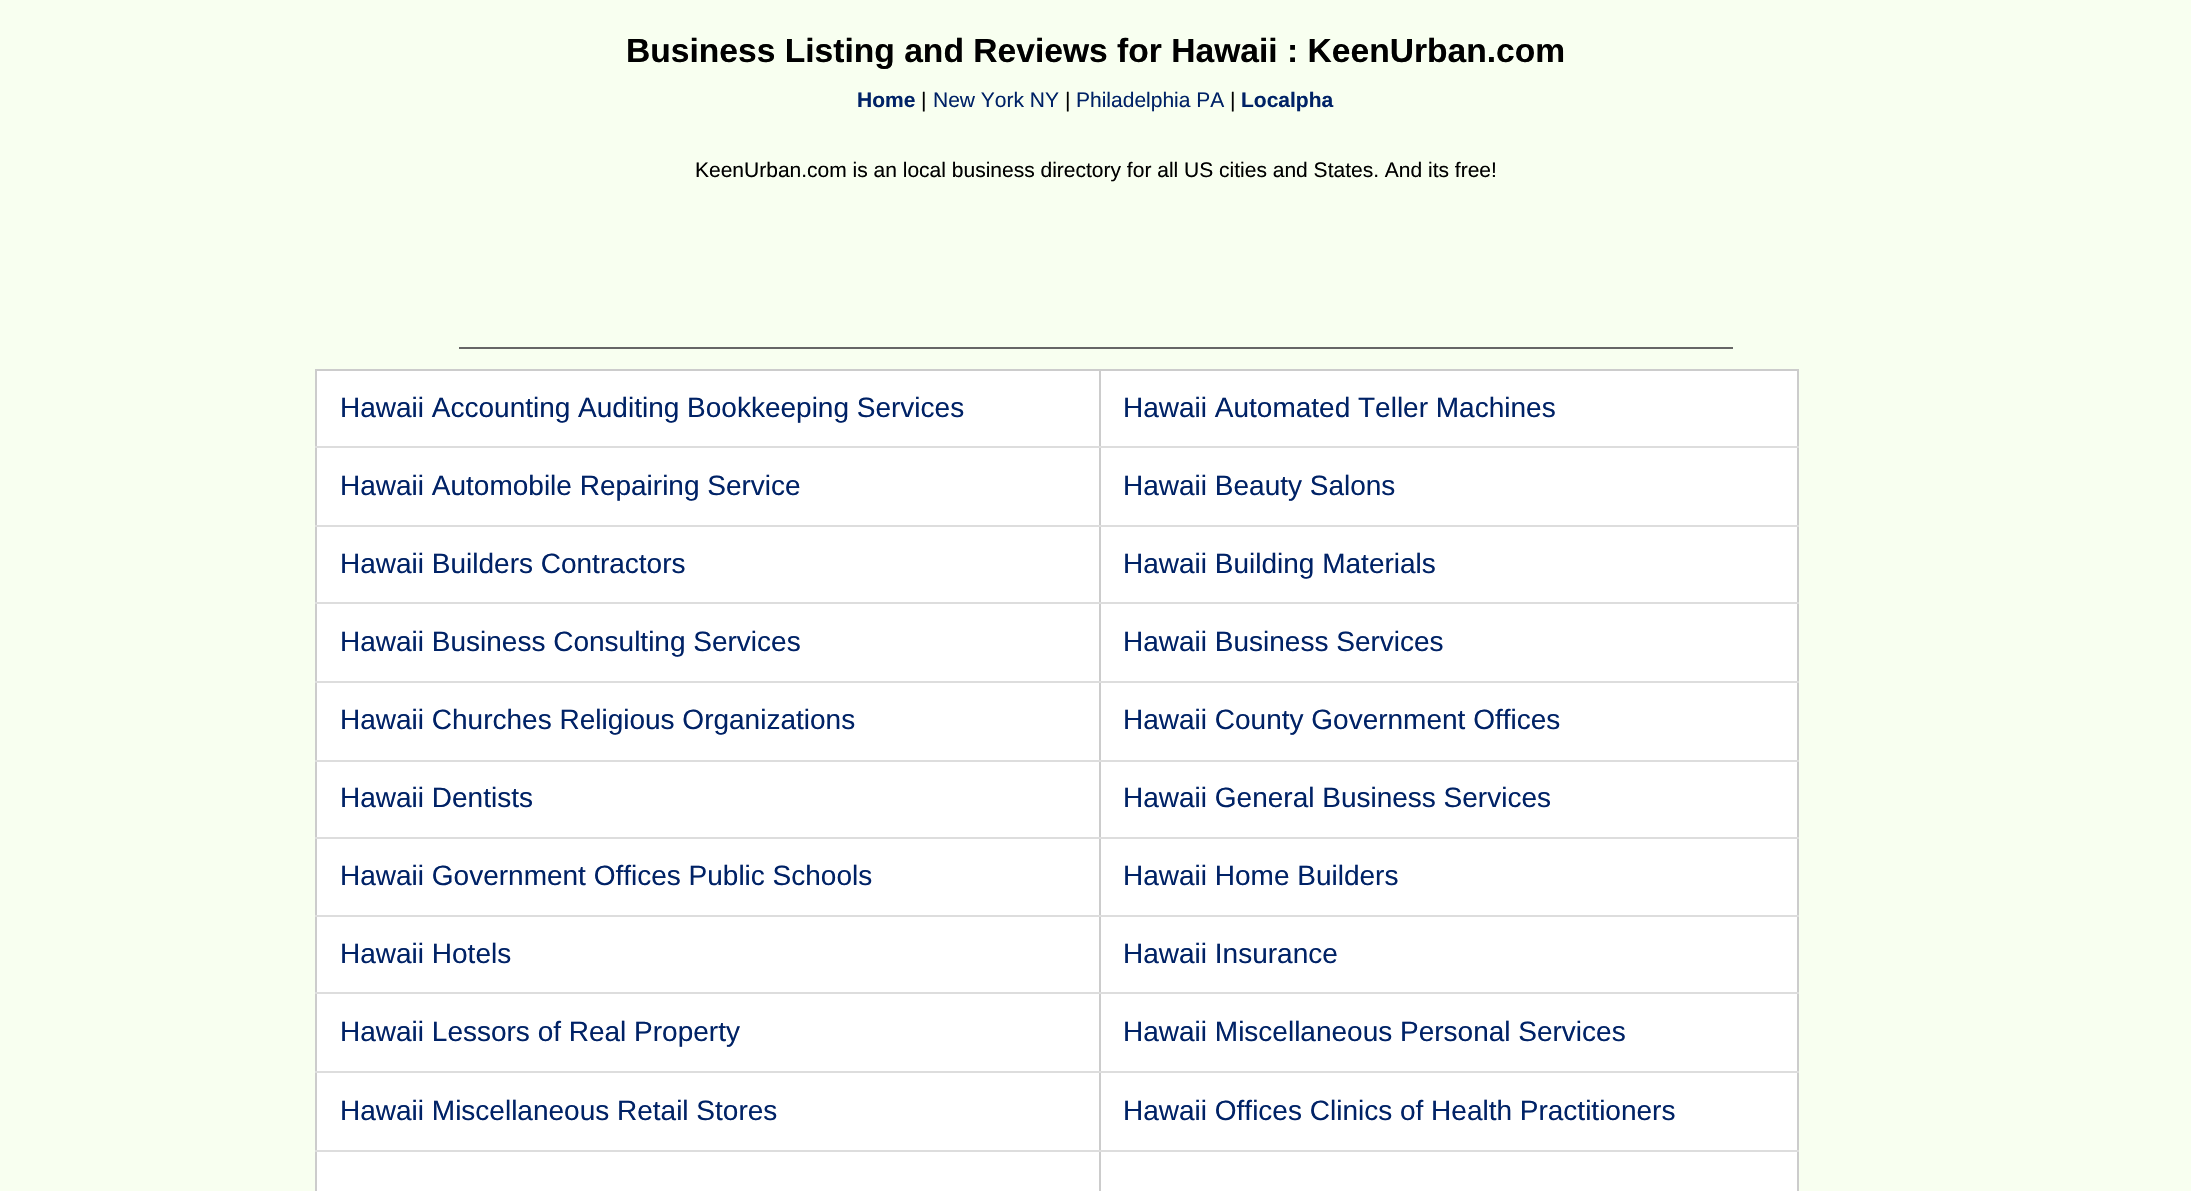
#include "include/core/SkBlurTypes.h"
#include "include/core/SkCanvas.h"
#include "include/core/SkData.h"
#include "include/core/SkFont.h"
#include "include/core/SkFontMgr.h"
#include "include/core/SkImage.h"
#include "include/core/SkMaskFilter.h"
#include "include/core/SkPaint.h"
#include "include/core/SkPathBuilder.h"
#include "include/core/SkTextBlob.h"
#include "include/effects/SkDashPathEffect.h"
#include "include/effects/SkGradientShader.h"
#include "include/utils/SkParsePath.h"

extern sk_sp<SkFontMgr> fontMgr;

static SkFont font(const char* family, int weight, float size, bool italic = false) {
    SkFontStyle style(weight, SkFontStyle::kNormal_Width,
        italic ? SkFontStyle::kItalic_Slant : SkFontStyle::kUpright_Slant);
    SkFont result(fontMgr->matchFamilyStyle(family, style), size);
    result.setSubpixel(true);
    return result;
}

static void drawLabel(SkCanvas* canvas, const char* s, float x, float y, const SkFont& font, SkColor color) {
    SkPaint ink(SkColor4f::FromColor(color));
    ink.setAntiAlias(true);
    canvas->drawString(s, x, y, font, ink);
}

static void fillRect(SkCanvas* canvas, float x, float y, float w, float h, SkColor color) {
    SkPaint ink(SkColor4f::FromColor(color));
    ink.setAntiAlias(true);
    canvas->drawRect(SkRect::MakeXYWH(x, y, w, h), ink);
}

void draw(SkCanvas* canvas) {
    SkPaint paint;
    paint.setAntiAlias(true);
    canvas->clear(0xFFF8FFF0);
    SkFont font1 = font("Liberation Sans", 700, 33.6f);
    drawLabel(canvas, "Business Listing and Reviews for Hawaii : KeenUrban.com", 626, 62, font1, 0xFF000000);
    SkFont font2 = font("Liberation Sans", 700, 21);
    drawLabel(canvas, "Home", 857, 107, font2, 0xFF002266);
    SkFont font3 = font("Liberation Sans", 400, 21);
    drawLabel(canvas, "|", 921, 107, font3, 0xFF000000);
    drawLabel(canvas, "New York NY", 933, 107, font3, 0xFF002266);
    drawLabel(canvas, "|", 1065, 107, font3, 0xFF000000);
    drawLabel(canvas, "Philadelphia PA", 1076, 107, font3, 0xFF002266);
    drawLabel(canvas, "|", 1230, 107, font3, 0xFF000000);
    drawLabel(canvas, "Localpha", 1241, 107, font2, 0xFF002266);
    drawLabel(canvas, "KeenUrban.com is an local business directory for all US cities and States. And its free!", 695, 177, font3, 0xFF000000);
    fillRect(canvas, 459, 347, 1274, 2, 0xFF666666);
    fillRect(canvas, 315, 369, 1484, 2, 0xFFCCCCCC);
    fillRect(canvas, 315, 369, 2, 822, 0xFFCCCCCC);
    fillRect(canvas, 317, 1152, 782, 39, 0xFFFFFFFF);
    fillRect(canvas, 1099, 1150, 2, 41, 0xFFCCCCCC);
    fillRect(canvas, 1101, 1152, 696, 39, 0xFFFFFFFF);
    fillRect(canvas, 1797, 369, 2, 822, 0xFFCCCCCC);
    fillRect(canvas, 317, 371, 782, 75, 0xFFFFFFFF);
    fillRect(canvas, 1099, 1150, 700, 2, 0xFFDDDDDD);
    fillRect(canvas, 1099, 1071, 2, 81, 0xFFCCCCCC);
    fillRect(canvas, 1099, 1071, 700, 2, 0xFFDDDDDD);
    fillRect(canvas, 1099, 992, 2, 81, 0xFFCCCCCC);
    fillRect(canvas, 1099, 992, 700, 2, 0xFFDDDDDD);
    fillRect(canvas, 1099, 915, 2, 79, 0xFFCCCCCC);
    fillRect(canvas, 1099, 915, 700, 2, 0xFFDDDDDD);
    fillRect(canvas, 1099, 837, 2, 80, 0xFFCCCCCC);
    fillRect(canvas, 1099, 837, 700, 2, 0xFFDDDDDD);
    fillRect(canvas, 1099, 760, 2, 78, 0xFFCCCCCC);
    fillRect(canvas, 1099, 760, 700, 2, 0xFFDDDDDD);
    fillRect(canvas, 1099, 681, 2, 80, 0xFFCCCCCC);
    fillRect(canvas, 1099, 681, 700, 2, 0xFFDDDDDD);
    fillRect(canvas, 1099, 602, 2, 81, 0xFFCCCCCC);
    fillRect(canvas, 1099, 602, 700, 2, 0xFFDDDDDD);
    fillRect(canvas, 1099, 525, 2, 79, 0xFFCCCCCC);
    fillRect(canvas, 1099, 525, 700, 2, 0xFFDDDDDD);
    fillRect(canvas, 1099, 446, 2, 81, 0xFFCCCCCC);
    fillRect(canvas, 1099, 446, 700, 2, 0xFFDDDDDD);
    fillRect(canvas, 1099, 369, 2, 79, 0xFFCCCCCC);
    fillRect(canvas, 315, 446, 786, 2, 0xFFDDDDDD);
    SkFont font4 = font("Liberation Sans", 400, 28);
    drawLabel(canvas, "Hawaii Accounting Auditing Bookkeeping Services", 340, 417, font4, 0xFF002266);
    fillRect(canvas, 1101, 371, 696, 75, 0xFFFFFFFF);
    drawLabel(canvas, "Hawaii Automated Teller Machines", 1123, 417, font4, 0xFF002266);
    fillRect(canvas, 317, 448, 782, 77, 0xFFFFFFFF);
    fillRect(canvas, 315, 525, 786, 2, 0xFFDDDDDD);
    drawLabel(canvas, "Hawaii Automobile Repairing Service", 340, 495, font4, 0xFF002266);
    fillRect(canvas, 1101, 448, 696, 77, 0xFFFFFFFF);
    drawLabel(canvas, "Hawaii Beauty Salons", 1123, 495, font4, 0xFF002266);
    fillRect(canvas, 317, 527, 782, 75, 0xFFFFFFFF);
    fillRect(canvas, 315, 602, 786, 2, 0xFFDDDDDD);
    drawLabel(canvas, "Hawaii Builders Contractors", 340, 573, font4, 0xFF002266);
    fillRect(canvas, 1101, 527, 696, 75, 0xFFFFFFFF);
    drawLabel(canvas, "Hawaii Building Materials", 1123, 573, font4, 0xFF002266);
    fillRect(canvas, 317, 604, 782, 77, 0xFFFFFFFF);
    fillRect(canvas, 315, 681, 786, 2, 0xFFDDDDDD);
    drawLabel(canvas, "Hawaii Business Consulting Services", 340, 651, font4, 0xFF002266);
    fillRect(canvas, 1101, 604, 696, 77, 0xFFFFFFFF);
    drawLabel(canvas, "Hawaii Business Services", 1123, 651, font4, 0xFF002266);
    fillRect(canvas, 317, 683, 782, 77, 0xFFFFFFFF);
    fillRect(canvas, 315, 760, 786, 2, 0xFFDDDDDD);
    drawLabel(canvas, "Hawaii Churches Religious Organizations", 340, 729, font4, 0xFF002266);
    fillRect(canvas, 1101, 683, 696, 77, 0xFFFFFFFF);
    drawLabel(canvas, "Hawaii County Government Offices", 1123, 729, font4, 0xFF002266);
    fillRect(canvas, 317, 762, 782, 75, 0xFFFFFFFF);
    fillRect(canvas, 315, 837, 786, 2, 0xFFDDDDDD);
    drawLabel(canvas, "Hawaii Dentists", 340, 807, font4, 0xFF002266);
    fillRect(canvas, 1101, 762, 696, 75, 0xFFFFFFFF);
    drawLabel(canvas, "Hawaii General Business Services", 1123, 807, font4, 0xFF002266);
    fillRect(canvas, 317, 839, 782, 76, 0xFFFFFFFF);
    fillRect(canvas, 315, 915, 786, 2, 0xFFDDDDDD);
    drawLabel(canvas, "Hawaii Government Offices Public Schools", 340, 885, font4, 0xFF002266);
    fillRect(canvas, 1101, 839, 696, 76, 0xFFFFFFFF);
    drawLabel(canvas, "Hawaii Home Builders", 1123, 885, font4, 0xFF002266);
    fillRect(canvas, 317, 917, 782, 75, 0xFFFFFFFF);
    fillRect(canvas, 315, 992, 786, 2, 0xFFDDDDDD);
    drawLabel(canvas, "Hawaii Hotels", 340, 963, font4, 0xFF002266);
    fillRect(canvas, 1101, 917, 696, 75, 0xFFFFFFFF);
    drawLabel(canvas, "Hawaii Insurance", 1123, 963, font4, 0xFF002266);
    fillRect(canvas, 317, 994, 782, 77, 0xFFFFFFFF);
    fillRect(canvas, 315, 1071, 786, 2, 0xFFDDDDDD);
    drawLabel(canvas, "Hawaii Lessors of Real Property", 340, 1041, font4, 0xFF002266);
    fillRect(canvas, 1101, 994, 696, 77, 0xFFFFFFFF);
    drawLabel(canvas, "Hawaii Miscellaneous Personal Services", 1123, 1041, font4, 0xFF002266);
    fillRect(canvas, 317, 1073, 782, 77, 0xFFFFFFFF);
    fillRect(canvas, 315, 1150, 786, 2, 0xFFDDDDDD);
    drawLabel(canvas, "Hawaii Miscellaneous Retail Stores", 340, 1120, font4, 0xFF002266);
    fillRect(canvas, 1101, 1073, 696, 77, 0xFFFFFFFF);
    drawLabel(canvas, "Hawaii Offices Clinics of Health Practitioners", 1123, 1120, font4, 0xFF002266);
}
